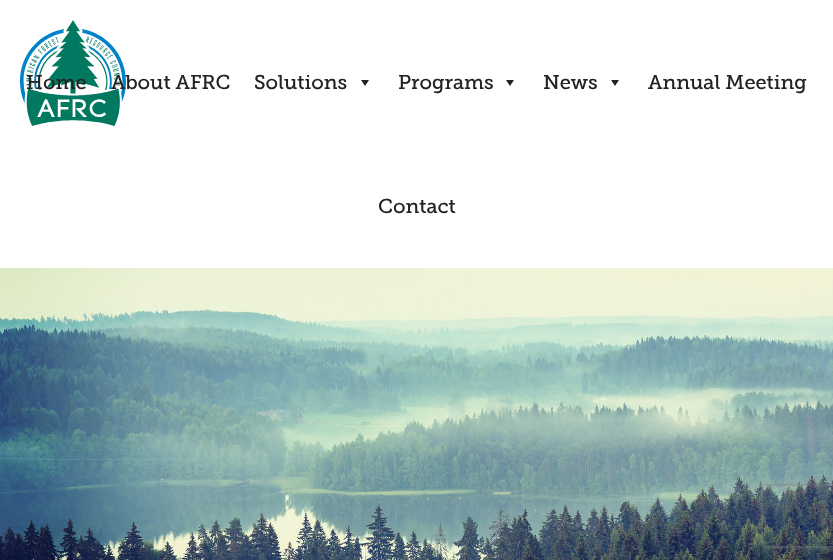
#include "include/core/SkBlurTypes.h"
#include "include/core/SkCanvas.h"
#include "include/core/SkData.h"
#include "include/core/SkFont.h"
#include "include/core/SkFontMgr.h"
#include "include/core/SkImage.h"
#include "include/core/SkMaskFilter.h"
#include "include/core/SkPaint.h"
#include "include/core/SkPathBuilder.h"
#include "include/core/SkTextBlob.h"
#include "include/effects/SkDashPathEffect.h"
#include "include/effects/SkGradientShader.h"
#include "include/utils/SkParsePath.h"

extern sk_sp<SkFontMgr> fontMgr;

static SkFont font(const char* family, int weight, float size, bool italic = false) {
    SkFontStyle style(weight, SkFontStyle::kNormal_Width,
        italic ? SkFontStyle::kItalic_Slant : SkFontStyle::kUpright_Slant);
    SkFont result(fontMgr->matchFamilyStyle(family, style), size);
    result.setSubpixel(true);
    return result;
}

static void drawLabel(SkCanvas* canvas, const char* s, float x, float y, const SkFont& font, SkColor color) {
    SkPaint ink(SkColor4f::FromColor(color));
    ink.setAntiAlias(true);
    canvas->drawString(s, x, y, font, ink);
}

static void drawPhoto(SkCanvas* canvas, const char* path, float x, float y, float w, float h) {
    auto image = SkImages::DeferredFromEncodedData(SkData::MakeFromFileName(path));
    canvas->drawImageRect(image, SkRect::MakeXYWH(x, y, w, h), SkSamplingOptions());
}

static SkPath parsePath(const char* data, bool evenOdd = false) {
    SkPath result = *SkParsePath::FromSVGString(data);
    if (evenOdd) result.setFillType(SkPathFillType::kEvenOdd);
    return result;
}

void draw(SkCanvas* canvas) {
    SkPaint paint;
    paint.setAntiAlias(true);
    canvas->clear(0xFFFFFFFF);
    drawPhoto(canvas, "assets/img1.png", 20, 20, 106, 106);
    SkFont font1 = font("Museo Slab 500", 400, 20);
    drawLabel(canvas, "Home", 26, 89, font1, 0xFF232323);
    drawLabel(canvas, "About AFRC", 111, 89, font1, 0xFF232323);
    drawLabel(canvas, "Solutions", 254, 89, font1, 0xFF232323);
    paint.setColor(0xFF232323);
    canvas->drawPath(parsePath("M369 80L365 86L361 80Z"), paint);
    drawLabel(canvas, "Programs", 398, 89, font1, 0xFF232323);
    canvas->drawPath(parsePath("M514 80L510 86L506 80Z"), paint);
    drawLabel(canvas, "News", 543, 89, font1, 0xFF232323);
    canvas->drawPath(parsePath("M619 80L615 86L611 80Z"), paint);
    drawLabel(canvas, "Annual Meeting", 648, 89, font1, 0xFF232323);
    drawLabel(canvas, "Contact", 378, 213, font1, 0xFF232323);
    drawPhoto(canvas, "assets/img2.png", 0, 268, 833, 292);
    canvas->save();
    canvas->clipPath(parsePath("M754 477H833V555H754ZM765 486H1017C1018 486 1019 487 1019 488V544C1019 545 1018 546 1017 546H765C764 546 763 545 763 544V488C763 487 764 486 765 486Z", true), true);
    paint.setColor(0xFF808080);
    paint.setMaskFilter(SkMaskFilter::MakeBlur(kNormal_SkBlurStyle, 2.5f));
    canvas->drawRoundRect(SkRect::MakeXYWH(763, 486, 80, 60), 2, 2, paint);
    paint.setMaskFilter(nullptr);
    canvas->restore();
}
